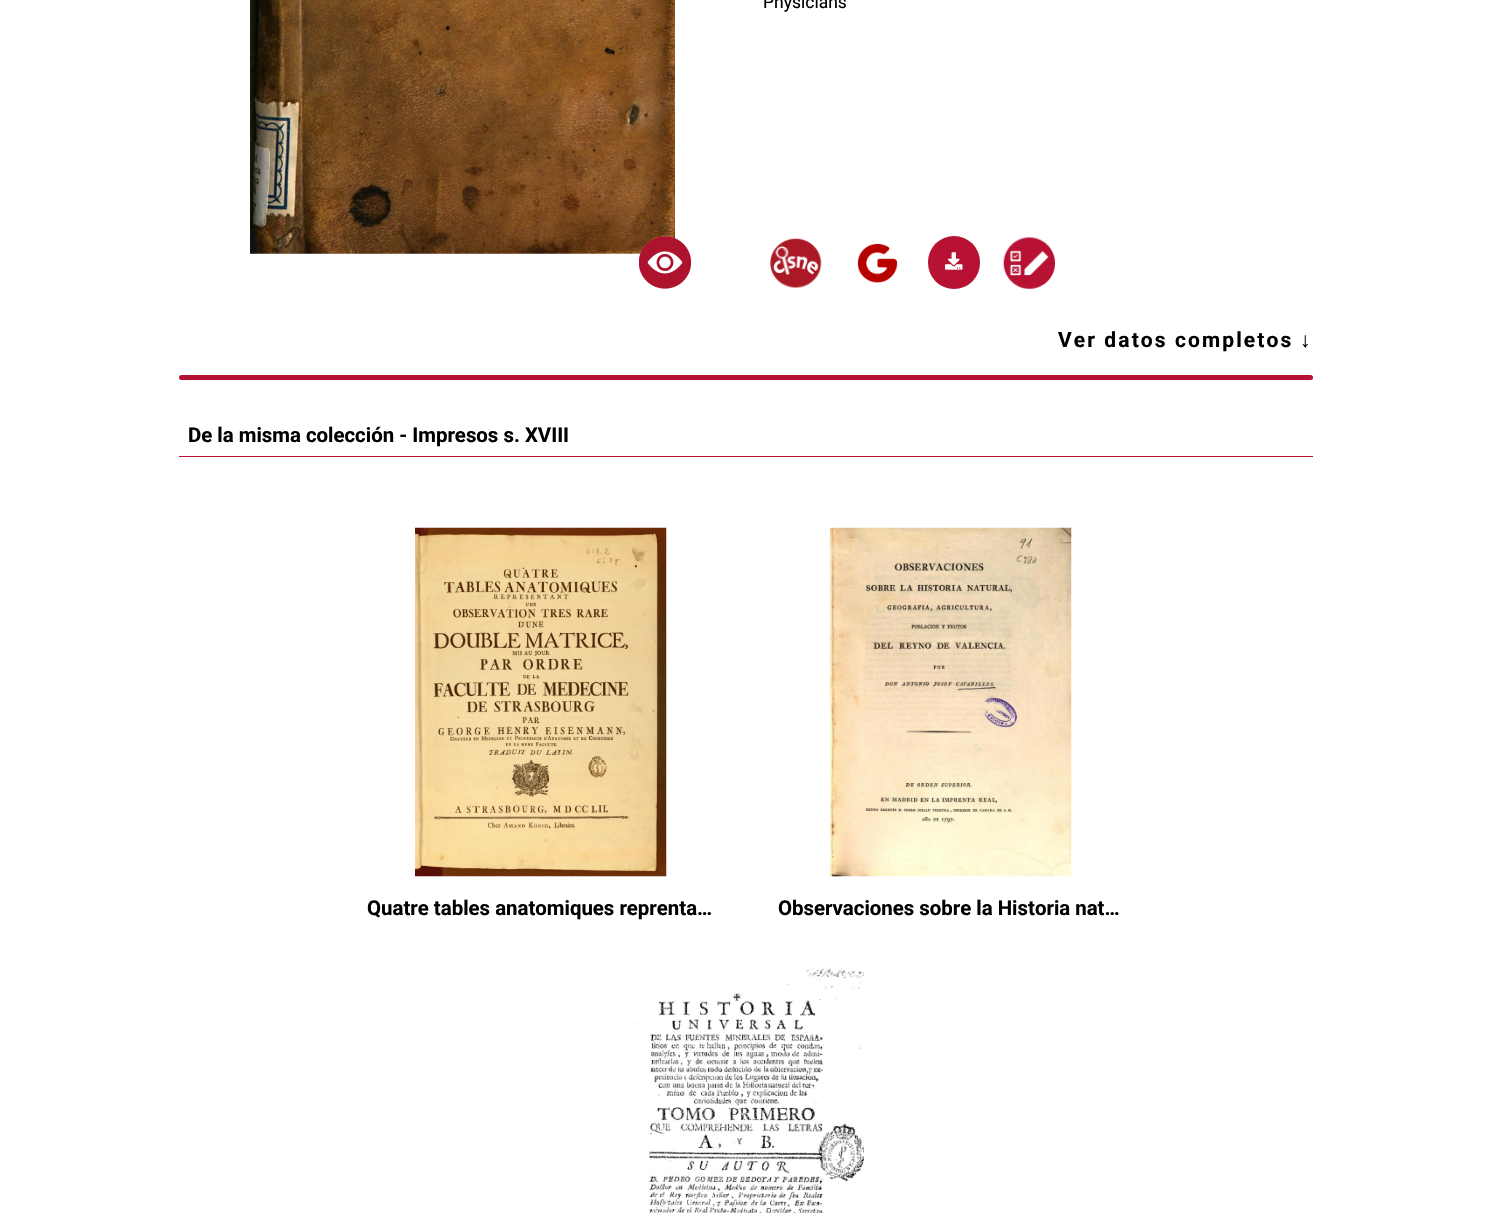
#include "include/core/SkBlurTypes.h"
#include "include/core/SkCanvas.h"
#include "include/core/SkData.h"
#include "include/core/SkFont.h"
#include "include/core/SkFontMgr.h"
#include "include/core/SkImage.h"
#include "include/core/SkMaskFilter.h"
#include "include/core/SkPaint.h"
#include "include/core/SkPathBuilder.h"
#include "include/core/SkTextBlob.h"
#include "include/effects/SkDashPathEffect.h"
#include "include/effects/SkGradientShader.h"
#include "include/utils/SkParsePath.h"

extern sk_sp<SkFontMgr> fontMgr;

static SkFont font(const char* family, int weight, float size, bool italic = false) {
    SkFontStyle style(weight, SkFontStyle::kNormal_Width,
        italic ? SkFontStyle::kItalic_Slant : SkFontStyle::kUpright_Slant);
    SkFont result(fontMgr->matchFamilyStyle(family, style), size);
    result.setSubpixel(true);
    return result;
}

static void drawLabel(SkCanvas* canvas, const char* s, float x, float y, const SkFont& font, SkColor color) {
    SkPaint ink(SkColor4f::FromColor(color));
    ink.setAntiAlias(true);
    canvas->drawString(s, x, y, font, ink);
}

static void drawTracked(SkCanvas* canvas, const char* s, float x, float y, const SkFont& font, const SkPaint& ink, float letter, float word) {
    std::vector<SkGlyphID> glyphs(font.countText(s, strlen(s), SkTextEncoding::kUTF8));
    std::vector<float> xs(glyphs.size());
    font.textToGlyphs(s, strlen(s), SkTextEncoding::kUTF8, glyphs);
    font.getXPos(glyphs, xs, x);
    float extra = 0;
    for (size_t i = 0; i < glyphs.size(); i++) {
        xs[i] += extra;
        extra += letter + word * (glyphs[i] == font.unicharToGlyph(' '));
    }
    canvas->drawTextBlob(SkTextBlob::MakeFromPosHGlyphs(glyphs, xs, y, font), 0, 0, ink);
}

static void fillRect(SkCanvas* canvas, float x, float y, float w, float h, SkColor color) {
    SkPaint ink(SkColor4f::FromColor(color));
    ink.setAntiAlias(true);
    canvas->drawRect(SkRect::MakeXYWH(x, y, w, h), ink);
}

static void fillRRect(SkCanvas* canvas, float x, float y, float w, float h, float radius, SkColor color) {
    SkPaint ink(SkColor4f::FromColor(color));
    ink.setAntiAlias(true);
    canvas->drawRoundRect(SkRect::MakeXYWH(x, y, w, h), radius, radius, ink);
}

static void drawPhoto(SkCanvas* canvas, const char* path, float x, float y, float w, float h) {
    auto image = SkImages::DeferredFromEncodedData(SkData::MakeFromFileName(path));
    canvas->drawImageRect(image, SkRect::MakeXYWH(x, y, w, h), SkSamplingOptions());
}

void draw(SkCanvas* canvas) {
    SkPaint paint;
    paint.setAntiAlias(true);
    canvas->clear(0xFFFFFFFF);
    drawPhoto(canvas, "assets/img1.png", 250, 0, 425, 254);
    drawPhoto(canvas, "assets/img2.png", 639, 236, 52, 53);
    SkFont font1 = font("Roboto", 400, 17.5f);
    drawLabel(canvas, "Physicians", 763, 8, font1, 0xFF000000);
    drawPhoto(canvas, "assets/img3.png", 770, 238, 52, 50);
    drawPhoto(canvas, "assets/img4.png", 857, 244, 41, 39);
    fillRRect(canvas, 928, 236, 52, 53, 26, 0xFFB71234);
    drawPhoto(canvas, "assets/img5.png", 945, 252, 18, 18);
    drawPhoto(canvas, "assets/img6.png", 1003, 237, 52, 52);
    SkFont font2 = font("Roboto", 700, 21);
    paint.setColor(0xFF000000);
    drawTracked(canvas, "Ver datos completos", 1058, 347, font2, paint, 2.1f, 0);
    SkFont font3 = font("Liberation Sans", 700, 21);
    drawTracked(canvas, "↓", 1300, 347, font3, paint, 2.1f, 0);
    fillRRect(canvas, 179, 375, 1134, 5, 2.5f, 0xFFB71234);
    fillRect(canvas, 179, 456, 1134, 1, 0xFFB71234);
    SkFont font4 = font("Roboto", 700, 20.4f);
    drawLabel(canvas, "De la misma colección - Impresos s. XVIII", 188, 442, font4, 0xFF000000);
    drawPhoto(canvas, "assets/img7.png", 415, 527, 252, 350);
    drawLabel(canvas, "Quatre tables anatomiques reprenta…", 367, 915, font4, 0xFF000000);
    drawPhoto(canvas, "assets/img8.png", 830, 527, 242, 350);
    drawLabel(canvas, "Observaciones sobre la Historia nat…", 778, 915, font4, 0xFF000000);
    drawPhoto(canvas, "assets/img9.png", 634, 967, 230, 246);
}
